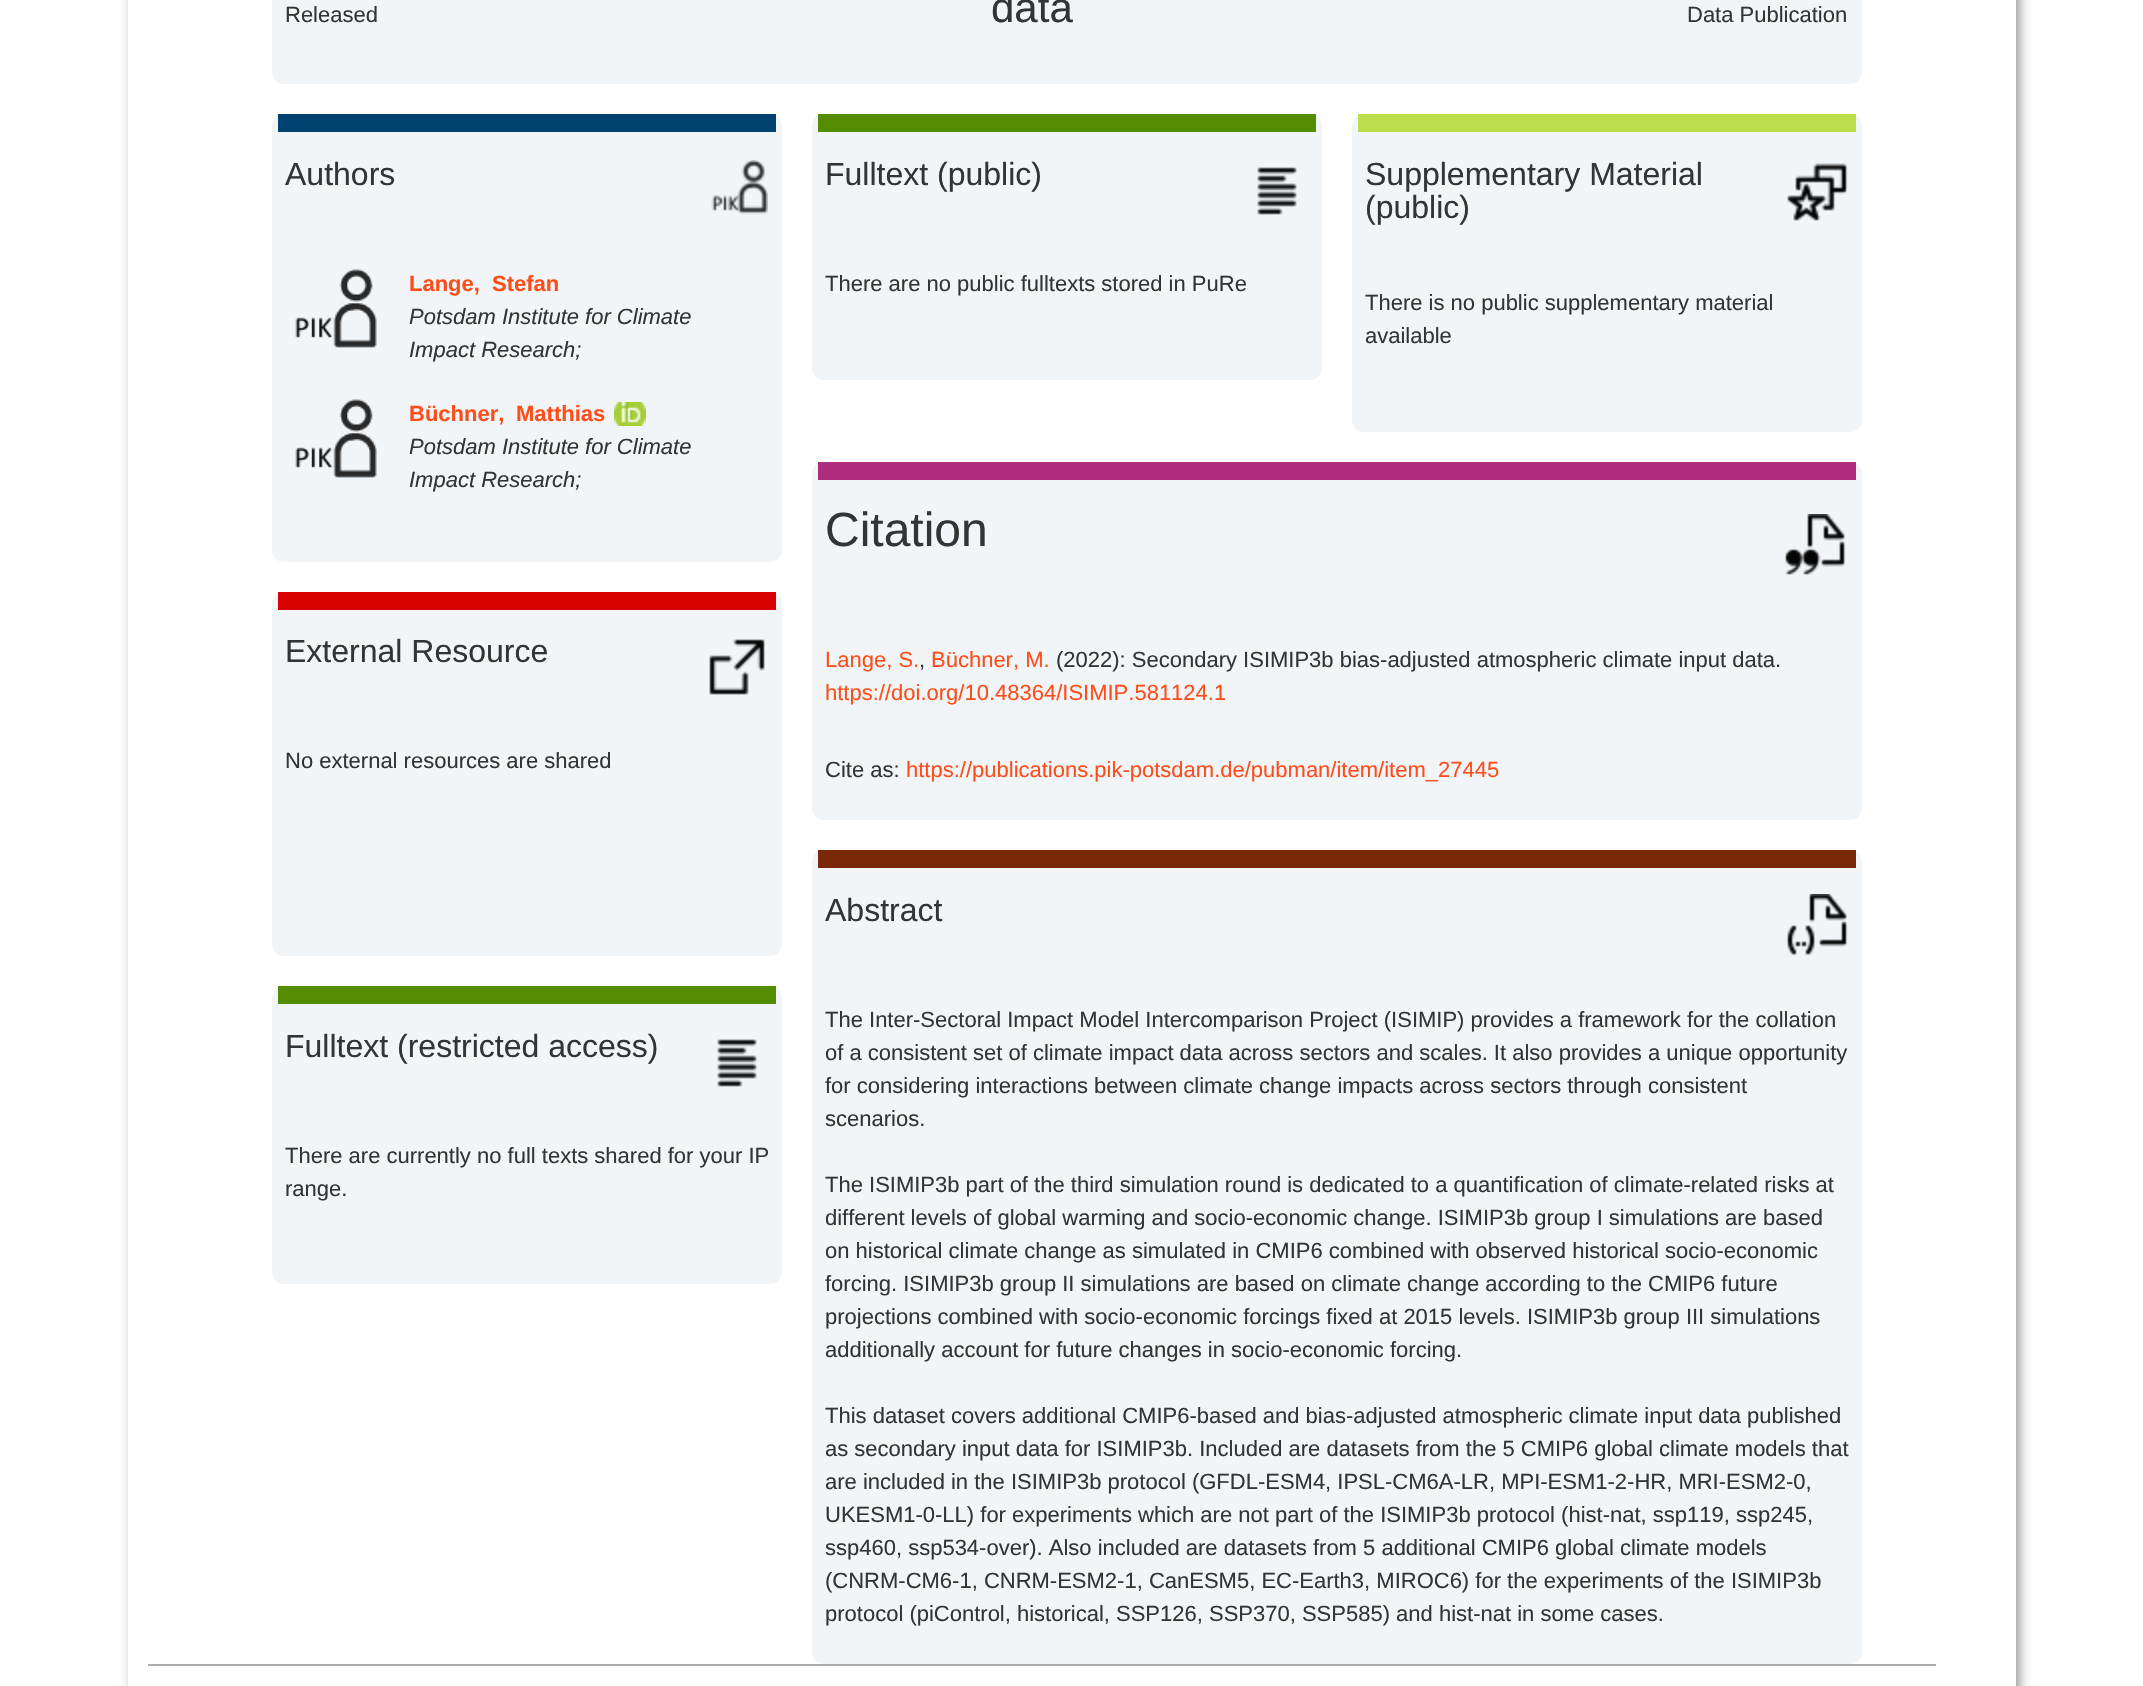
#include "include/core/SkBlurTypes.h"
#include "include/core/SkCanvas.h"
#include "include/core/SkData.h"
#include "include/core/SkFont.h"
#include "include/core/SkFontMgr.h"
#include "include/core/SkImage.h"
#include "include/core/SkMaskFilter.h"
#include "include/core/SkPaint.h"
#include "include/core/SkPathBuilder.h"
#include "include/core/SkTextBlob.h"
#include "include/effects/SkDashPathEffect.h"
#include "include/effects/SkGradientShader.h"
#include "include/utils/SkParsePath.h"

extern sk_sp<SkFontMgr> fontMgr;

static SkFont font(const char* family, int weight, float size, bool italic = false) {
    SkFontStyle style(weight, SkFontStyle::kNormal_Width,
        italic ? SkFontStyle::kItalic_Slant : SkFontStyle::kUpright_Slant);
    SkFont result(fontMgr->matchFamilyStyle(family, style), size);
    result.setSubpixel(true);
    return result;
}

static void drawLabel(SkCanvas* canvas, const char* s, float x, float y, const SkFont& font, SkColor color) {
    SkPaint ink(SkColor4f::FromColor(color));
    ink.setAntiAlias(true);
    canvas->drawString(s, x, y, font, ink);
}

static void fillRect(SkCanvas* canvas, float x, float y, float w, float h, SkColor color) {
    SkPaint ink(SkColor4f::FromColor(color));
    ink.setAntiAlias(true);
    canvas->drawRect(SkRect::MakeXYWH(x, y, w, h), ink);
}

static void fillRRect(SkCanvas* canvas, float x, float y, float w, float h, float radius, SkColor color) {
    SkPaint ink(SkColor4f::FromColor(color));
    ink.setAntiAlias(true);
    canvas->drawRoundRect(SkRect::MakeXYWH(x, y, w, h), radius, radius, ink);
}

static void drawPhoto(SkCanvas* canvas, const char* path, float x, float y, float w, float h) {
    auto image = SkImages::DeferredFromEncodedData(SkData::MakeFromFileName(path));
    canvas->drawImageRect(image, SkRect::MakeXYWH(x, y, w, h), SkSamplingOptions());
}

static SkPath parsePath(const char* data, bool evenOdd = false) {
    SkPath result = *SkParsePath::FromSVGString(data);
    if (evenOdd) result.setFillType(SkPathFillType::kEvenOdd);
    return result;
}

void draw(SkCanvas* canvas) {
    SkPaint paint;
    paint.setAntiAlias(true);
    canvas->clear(0xFFFFFFFF);
    canvas->save();
    canvas->clipPath(parsePath("M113 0H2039V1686H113ZM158-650H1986C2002.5-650 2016-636.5 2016-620V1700C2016 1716.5 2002.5 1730 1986 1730H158C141.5 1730 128 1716.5 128 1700V-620C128-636.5 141.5-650 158-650Z", true), true);
    paint.setColor(0xFF999999);
    paint.setMaskFilter(SkMaskFilter::MakeBlur(kNormal_SkBlurStyle, 6));
    canvas->drawRoundRect(SkRect::MakeXYWH(132, -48, 1888, 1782), 30, 30, paint);
    paint.setMaskFilter(nullptr);
    canvas->restore();
    fillRect(canvas, 148, 1664, 1788, 2, 0xFFAEAEAE);
    fillRRect(canvas, 272, -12, 1590, 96, 12, 0xFFF2F5F8);
    SkFont font1 = font("Liberation Sans", 400, 22);
    drawLabel(canvas, "Released", 285, 22, font1, 0xFF343434);
    SkFont font2 = font("Liberation Sans", 400, 42);
    drawLabel(canvas, "data", 991, 22, font2, 0xFF343434);
    drawLabel(canvas, "Data Publication", 1687, 22, font1, 0xFF343434);
    fillRRect(canvas, 272, 114, 510, 448, 12, 0xFFF2F5F8);
    fillRect(canvas, 278, 114, 498, 18, 0xFF004373);
    SkFont font3 = font("Liberation Sans", 400, 32);
    drawLabel(canvas, "Authors", 285, 185, font3, 0xFF343434);
    drawPhoto(canvas, "assets/img1.png", 711, 160, 57, 55);
    drawPhoto(canvas, "assets/img2.png", 295, 269, 82, 79);
    SkFont font4 = font("Liberation Sans", 700, 22);
    drawLabel(canvas, "Lange,", 409, 291, font4, 0xFFFF4D19);
    drawLabel(canvas, "Stefan", 492, 291, font4, 0xFFFF4D19);
    SkFont font5 = font("Liberation Sans", 400, 22, true);
    drawLabel(canvas, "Potsdam Institute for Climate", 409, 324, font5, 0xFF343434);
    drawLabel(canvas, "Impact Research;", 409, 357, font5, 0xFF343434);
    drawPhoto(canvas, "assets/img2.png", 295, 399, 82, 79);
    drawLabel(canvas, "Büchner,", 409, 421, font4, 0xFFFF4D19);
    drawLabel(canvas, "Matthias", 516, 421, font4, 0xFFFF4D19);
    drawPhoto(canvas, "assets/img3.png", 614, 402, 32, 24);
    drawLabel(canvas, "Potsdam Institute for Climate", 409, 454, font5, 0xFF343434);
    drawLabel(canvas, "Impact Research;", 409, 487, font5, 0xFF343434);
    fillRRect(canvas, 272, 592, 510, 364, 12, 0xFFF2F5F8);
    fillRect(canvas, 278, 592, 498, 18, 0xFFD80000);
    drawLabel(canvas, "External Resource", 285, 662, font3, 0xFF343434);
    drawPhoto(canvas, "assets/img4.png", 709, 639, 56, 56);
    drawLabel(canvas, "No external resources are shared", 285, 768, font1, 0xFF343434);
    fillRRect(canvas, 272, 986, 510, 298, 12, 0xFFF2F5F8);
    fillRect(canvas, 278, 986, 498, 18, 0xFF548E00);
    drawLabel(canvas, "Fulltext (restricted access)", 285, 1057, font3, 0xFF343434);
    drawPhoto(canvas, "assets/img5.png", 717, 1039, 40, 48);
    drawLabel(canvas, "There are currently no full texts shared for your IP", 285, 1163, font1, 0xFF343434);
    drawLabel(canvas, "range.", 285, 1196, font1, 0xFF343434);
    fillRRect(canvas, 812, 114, 510, 266, 12, 0xFFF2F5F8);
    fillRect(canvas, 818, 114, 498, 18, 0xFF548E00);
    drawLabel(canvas, "Fulltext (public)", 825, 185, font3, 0xFF343434);
    drawPhoto(canvas, "assets/img5.png", 1257, 167, 40, 48);
    drawLabel(canvas, "There are no public fulltexts stored in PuRe", 825, 291, font1, 0xFF343434);
    fillRRect(canvas, 1352, 114, 510, 318, 12, 0xFFF2F5F8);
    fillRect(canvas, 1358, 114, 498, 18, 0xFFBADF4A);
    drawLabel(canvas, "Supplementary Material", 1365, 185, font3, 0xFF343434);
    drawPhoto(canvas, "assets/img6.png", 1787, 163, 61, 58);
    drawLabel(canvas, "(public)", 1365, 218, font3, 0xFF343434);
    drawLabel(canvas, "There is no public supplementary material", 1365, 310, font1, 0xFF343434);
    drawLabel(canvas, "available", 1365, 343, font1, 0xFF343434);
    fillRRect(canvas, 812, 462, 1050, 358, 12, 0xFFF2F5F8);
    fillRect(canvas, 818, 462, 1038, 18, 0xFFAF2C7E);
    SkFont font6 = font("Liberation Sans", 400, 48);
    drawLabel(canvas, "Citation", 825, 546, font6, 0xFF343434);
    drawPhoto(canvas, "assets/img7.png", 1784, 514, 62, 61);
    drawLabel(canvas, "Lange, S.", 825, 667, font1, 0xFFFF4D19);
    drawLabel(canvas, ",", 919, 667, font1, 0xFF343434);
    drawLabel(canvas, "Büchner, M.", 931, 667, font1, 0xFFFF4D19);
    drawLabel(canvas, "(2022): Secondary ISIMIP3b bias-adjusted atmospheric climate input data.", 1056, 667, font1, 0xFF343434);
    drawLabel(canvas, "https://doi.org/10.48364/ISIMIP.581124.1", 825, 700, font1, 0xFFFF4D19);
    drawLabel(canvas, "Cite as:", 825, 777, font1, 0xFF343434);
    drawLabel(canvas, "https://publications.pik-potsdam.de/pubman/item/item_27445", 906, 777, font1, 0xFFFF4D19);
    fillRRect(canvas, 812, 850, 1050, 814, 12, 0xFFF2F5F8);
    fillRect(canvas, 818, 850, 1038, 18, 0xFF772909);
    drawLabel(canvas, "Abstract", 825, 921, font3, 0xFF343434);
    drawPhoto(canvas, "assets/img8.png", 1786, 894, 62, 62);
    drawLabel(canvas, "The Inter-Sectoral Impact Model Intercomparison Project (ISIMIP) provides a framework for the collation", 825, 1027, font1, 0xFF343434);
    drawLabel(canvas, "of a consistent set of climate impact data across sectors and scales. It also provides a unique opportunity", 825, 1060, font1, 0xFF343434);
    drawLabel(canvas, "for considering interactions between climate change impacts across sectors through consistent", 825, 1093, font1, 0xFF343434);
    drawLabel(canvas, "scenarios.", 825, 1126, font1, 0xFF343434);
    drawLabel(canvas, "The ISIMIP3b part of the third simulation round is dedicated to a quantification of climate-related risks at", 825, 1192, font1, 0xFF343434);
    drawLabel(canvas, "different levels of global warming and socio-economic change. ISIMIP3b group I simulations are based", 825, 1225, font1, 0xFF343434);
    drawLabel(canvas, "on historical climate change as simulated in CMIP6 combined with observed historical socio-economic", 825, 1258, font1, 0xFF343434);
    drawLabel(canvas, "forcing. ISIMIP3b group II simulations are based on climate change according to the CMIP6 future", 825, 1291, font1, 0xFF343434);
    drawLabel(canvas, "projections combined with socio-economic forcings fixed at 2015 levels. ISIMIP3b group III simulations", 825, 1324, font1, 0xFF343434);
    drawLabel(canvas, "additionally account for future changes in socio-economic forcing.", 825, 1357, font1, 0xFF343434);
    drawLabel(canvas, "This dataset covers additional CMIP6-based and bias-adjusted atmospheric climate input data published", 825, 1423, font1, 0xFF343434);
    drawLabel(canvas, "as secondary input data for ISIMIP3b. Included are datasets from the 5 CMIP6 global climate models that", 825, 1456, font1, 0xFF343434);
    drawLabel(canvas, "are included in the ISIMIP3b protocol (GFDL-ESM4, IPSL-CM6A-LR, MPI-ESM1-2-HR, MRI-ESM2-0,", 825, 1489, font1, 0xFF343434);
    drawLabel(canvas, "UKESM1-0-LL) for experiments which are not part of the ISIMIP3b protocol (hist-nat, ssp119, ssp245,", 825, 1522, font1, 0xFF343434);
    drawLabel(canvas, "ssp460, ssp534-over). Also included are datasets from 5 additional CMIP6 global climate models", 825, 1555, font1, 0xFF343434);
    drawLabel(canvas, "(CNRM-CM6-1, CNRM-ESM2-1, CanESM5, EC-Earth3, MIROC6) for the experiments of the ISIMIP3b", 825, 1588, font1, 0xFF343434);
    drawLabel(canvas, "protocol (piControl, historical, SSP126, SSP370, SSP585) and hist-nat in some cases.", 825, 1621, font1, 0xFF343434);
}
